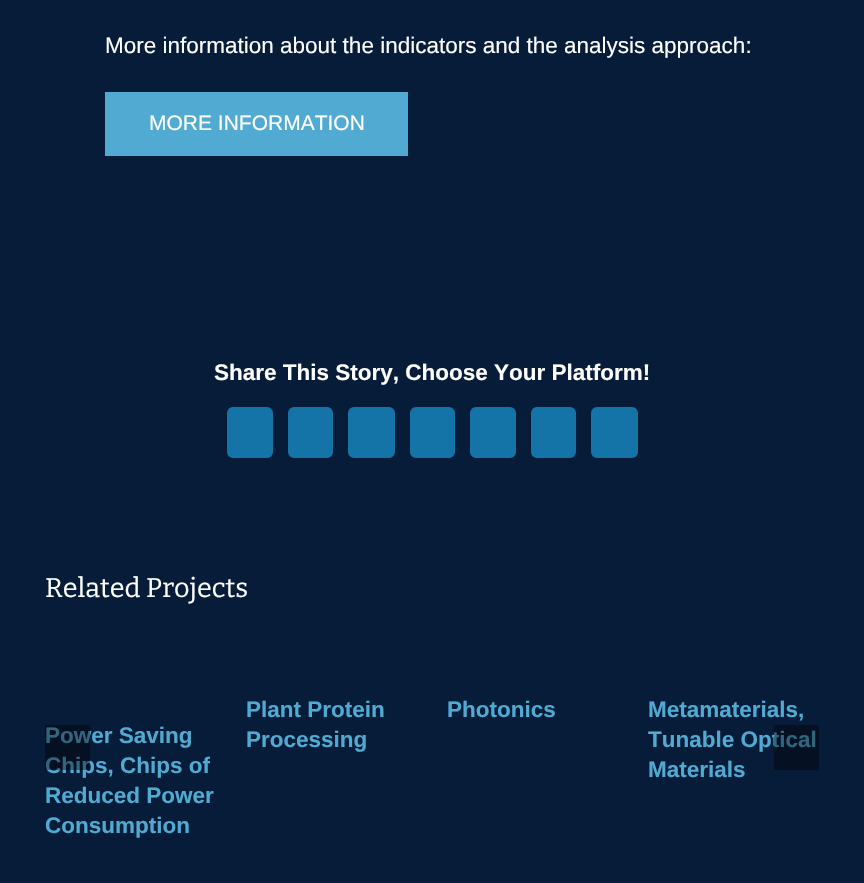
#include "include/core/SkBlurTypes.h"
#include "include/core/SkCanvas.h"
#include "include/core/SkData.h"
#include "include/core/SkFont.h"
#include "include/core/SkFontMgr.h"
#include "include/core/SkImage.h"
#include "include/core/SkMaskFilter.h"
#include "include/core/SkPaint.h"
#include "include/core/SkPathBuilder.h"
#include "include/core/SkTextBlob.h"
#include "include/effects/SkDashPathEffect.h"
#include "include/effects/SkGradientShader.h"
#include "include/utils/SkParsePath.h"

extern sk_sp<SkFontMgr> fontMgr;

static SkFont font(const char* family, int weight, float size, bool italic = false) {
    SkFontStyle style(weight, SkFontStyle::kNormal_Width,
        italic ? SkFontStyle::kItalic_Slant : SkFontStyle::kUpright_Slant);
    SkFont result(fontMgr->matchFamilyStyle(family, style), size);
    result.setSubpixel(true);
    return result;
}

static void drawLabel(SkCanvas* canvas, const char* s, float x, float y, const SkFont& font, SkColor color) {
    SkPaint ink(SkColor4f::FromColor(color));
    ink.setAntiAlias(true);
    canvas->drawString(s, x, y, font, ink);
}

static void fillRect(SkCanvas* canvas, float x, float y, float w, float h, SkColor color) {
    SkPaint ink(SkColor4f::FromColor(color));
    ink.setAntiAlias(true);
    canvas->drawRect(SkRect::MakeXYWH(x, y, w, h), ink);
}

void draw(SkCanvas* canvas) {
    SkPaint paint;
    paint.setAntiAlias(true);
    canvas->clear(0xFF071C38);
    SkFont font1 = font("Liberation Sans", 400, 22.5f);
    drawLabel(canvas, "More information about the indicators and the analysis approach:", 105, 53, font1, 0xFFFFFFFF);
    fillRect(canvas, 105, 92, 303, 64, 0xFF50AAD2);
    SkFont font2 = font("Liberation Sans", 400, 21);
    drawLabel(canvas, "MORE INFORMATION", 149, 130, font2, 0xFFFFFFFF);
    SkFont font3 = font("Liberation Sans", 700, 22.5f);
    drawLabel(canvas, "Share This Story, Choose Your Platform!", 214, 380, font3, 0xFFFFFFFF);
    paint.setColor(0xFF1574A7);
    canvas->drawRoundRect(SkRect::MakeXYWH(228, 408, 44, 49), 5, 5, paint);
    paint.setStroke(true);
    paint.setStrokeWidth(2);
    canvas->drawRoundRect(SkRect::MakeXYWH(228, 408, 44, 49), 5, 5, paint);
    paint.setStroke(false);
    canvas->drawRoundRect(SkRect::MakeXYWH(289, 408, 43, 49), 5, 5, paint);
    paint.setStroke(true);
    canvas->drawRoundRect(SkRect::MakeXYWH(289, 408, 43, 49), 5, 5, paint);
    paint.setStroke(false);
    canvas->drawRoundRect(SkRect::MakeXYWH(349, 408, 45, 49), 5, 5, paint);
    paint.setStroke(true);
    canvas->drawRoundRect(SkRect::MakeXYWH(349, 408, 45, 49), 5, 5, paint);
    paint.setStroke(false);
    canvas->drawRoundRect(SkRect::MakeXYWH(411, 408, 43, 49), 5, 5, paint);
    paint.setStroke(true);
    canvas->drawRoundRect(SkRect::MakeXYWH(411, 408, 43, 49), 5, 5, paint);
    paint.setStroke(false);
    canvas->drawRoundRect(SkRect::MakeXYWH(471, 408, 44, 49), 5, 5, paint);
    paint.setStroke(true);
    canvas->drawRoundRect(SkRect::MakeXYWH(471, 408, 44, 49), 5, 5, paint);
    paint.setStroke(false);
    canvas->drawRoundRect(SkRect::MakeXYWH(532, 408, 43, 49), 5, 5, paint);
    paint.setStroke(true);
    canvas->drawRoundRect(SkRect::MakeXYWH(532, 408, 43, 49), 5, 5, paint);
    paint.setStroke(false);
    canvas->drawRoundRect(SkRect::MakeXYWH(592, 408, 45, 49), 5, 5, paint);
    paint.setStroke(true);
    canvas->drawRoundRect(SkRect::MakeXYWH(592, 408, 45, 49), 5, 5, paint);
    SkFont font4 = font("Bitter", 100, 27);
    drawLabel(canvas, "Related Projects", 45, 597, font4, 0xFFFFFFFF);
    drawLabel(canvas, "Power Saving", 45, 743, font3, 0xFF50AAD2);
    drawLabel(canvas, "Chips, Chips of", 45, 773, font3, 0xFF50AAD2);
    drawLabel(canvas, "Reduced Power", 45, 803, font3, 0xFF50AAD2);
    drawLabel(canvas, "Consumption", 45, 833, font3, 0xFF50AAD2);
    drawLabel(canvas, "Plant Protein", 246, 717, font3, 0xFF50AAD2);
    drawLabel(canvas, "Processing", 246, 747, font3, 0xFF50AAD2);
    drawLabel(canvas, "Photonics", 447, 717, font3, 0xFF50AAD2);
    drawLabel(canvas, "Metamaterials,", 648, 717, font3, 0xFF50AAD2);
    drawLabel(canvas, "Tunable Optical", 648, 747, font3, 0xFF50AAD2);
    drawLabel(canvas, "Materials", 648, 777, font3, 0xFF50AAD2);
    fillRect(canvas, 45, 725, 45, 45, 0x66000000);
    fillRect(canvas, 774, 725, 45, 45, 0x66000000);
}
